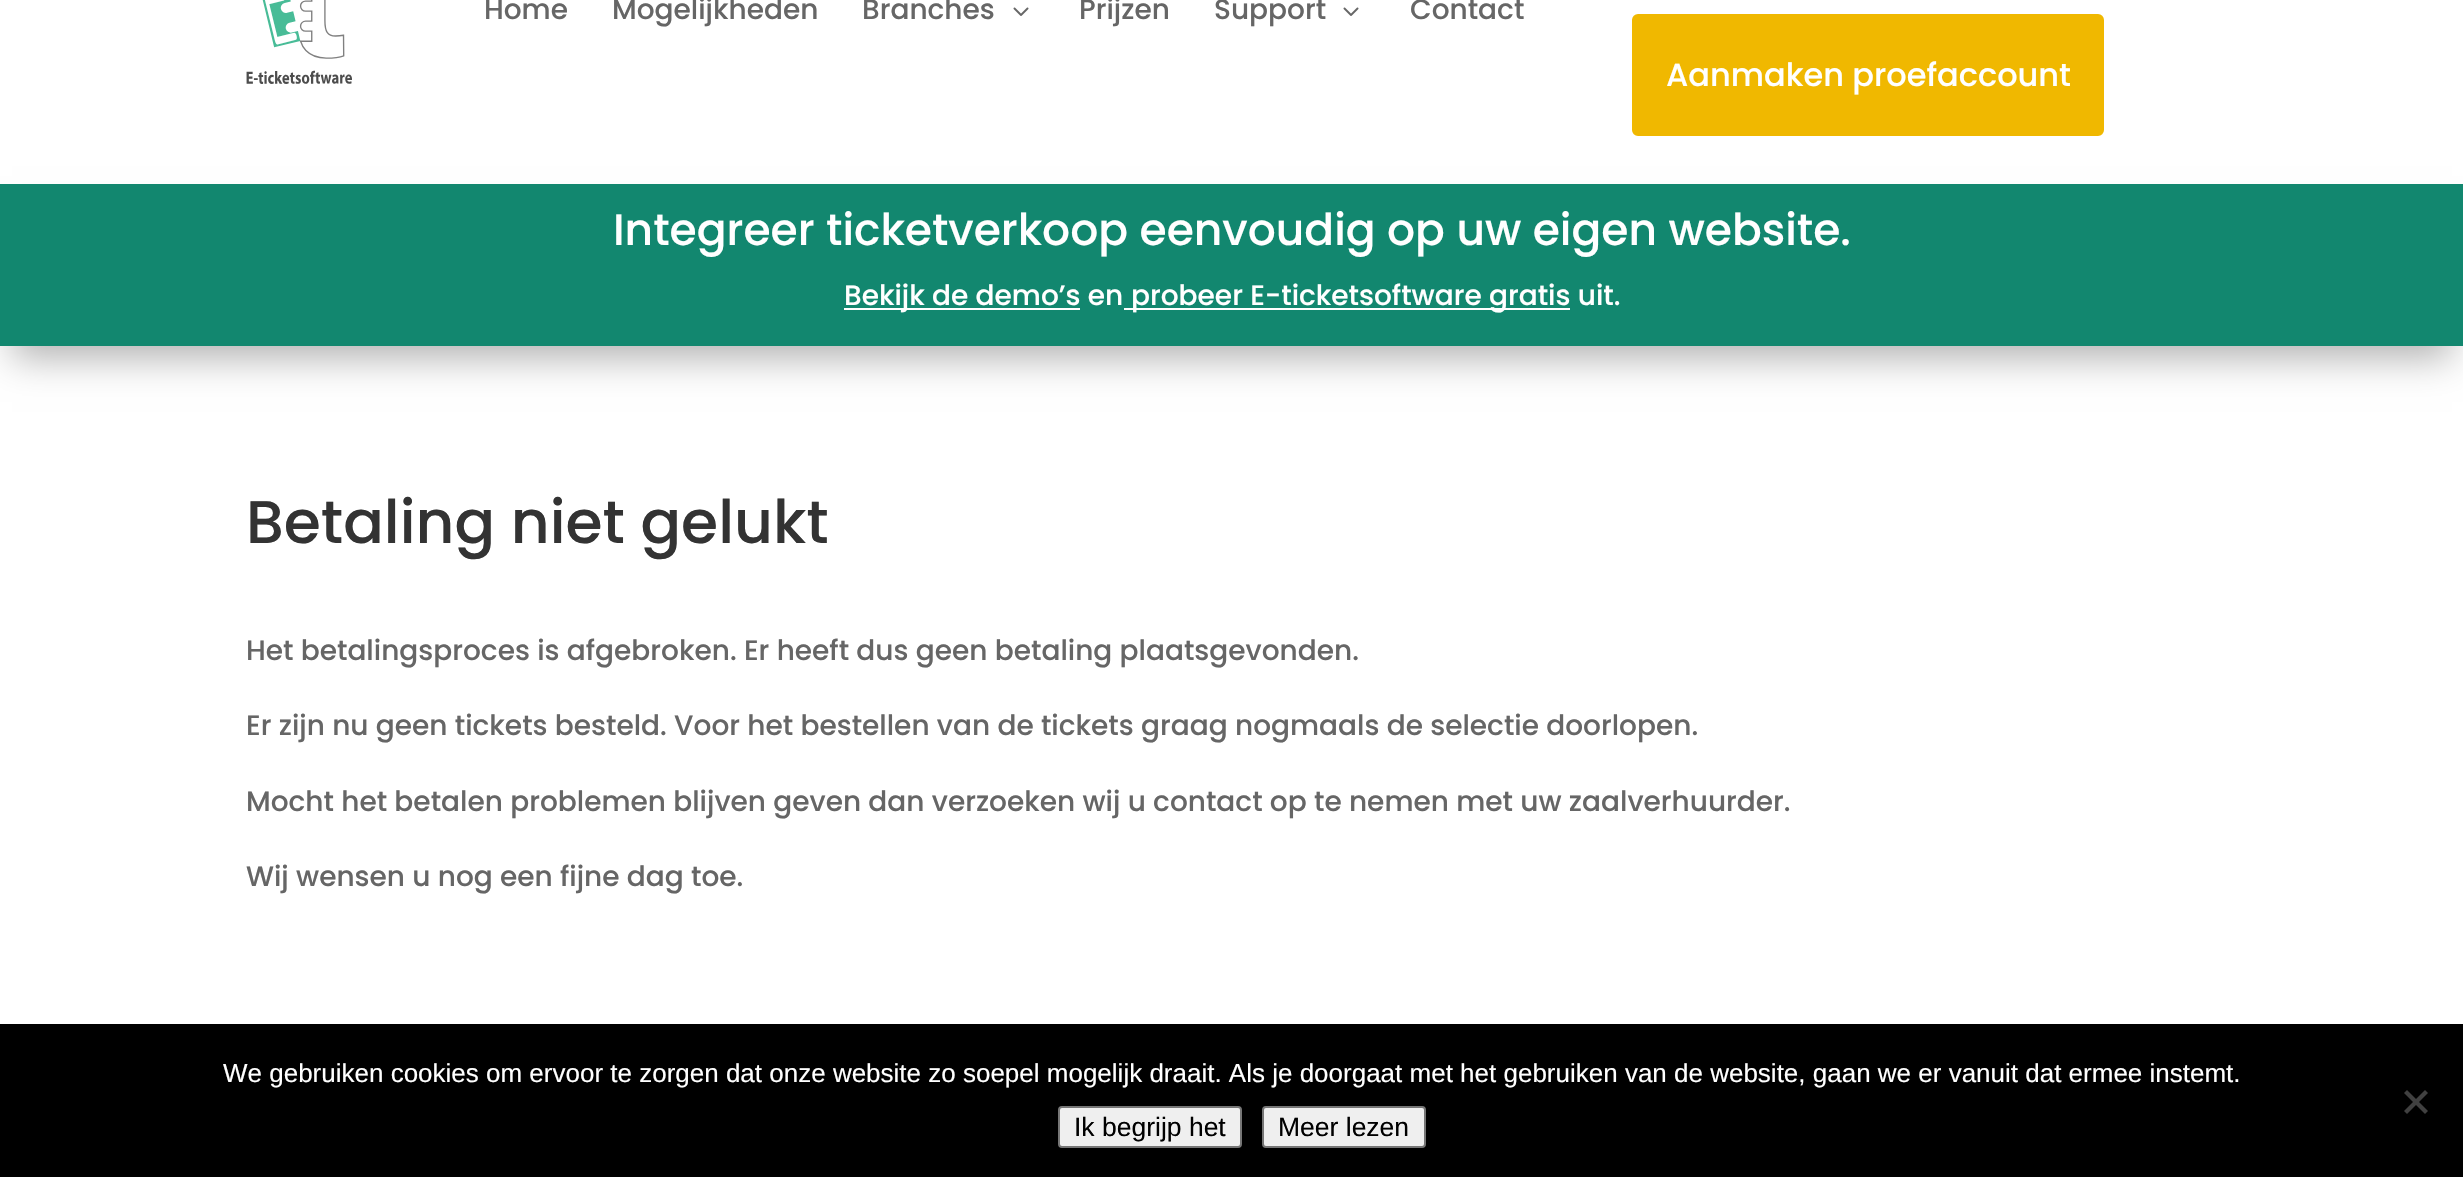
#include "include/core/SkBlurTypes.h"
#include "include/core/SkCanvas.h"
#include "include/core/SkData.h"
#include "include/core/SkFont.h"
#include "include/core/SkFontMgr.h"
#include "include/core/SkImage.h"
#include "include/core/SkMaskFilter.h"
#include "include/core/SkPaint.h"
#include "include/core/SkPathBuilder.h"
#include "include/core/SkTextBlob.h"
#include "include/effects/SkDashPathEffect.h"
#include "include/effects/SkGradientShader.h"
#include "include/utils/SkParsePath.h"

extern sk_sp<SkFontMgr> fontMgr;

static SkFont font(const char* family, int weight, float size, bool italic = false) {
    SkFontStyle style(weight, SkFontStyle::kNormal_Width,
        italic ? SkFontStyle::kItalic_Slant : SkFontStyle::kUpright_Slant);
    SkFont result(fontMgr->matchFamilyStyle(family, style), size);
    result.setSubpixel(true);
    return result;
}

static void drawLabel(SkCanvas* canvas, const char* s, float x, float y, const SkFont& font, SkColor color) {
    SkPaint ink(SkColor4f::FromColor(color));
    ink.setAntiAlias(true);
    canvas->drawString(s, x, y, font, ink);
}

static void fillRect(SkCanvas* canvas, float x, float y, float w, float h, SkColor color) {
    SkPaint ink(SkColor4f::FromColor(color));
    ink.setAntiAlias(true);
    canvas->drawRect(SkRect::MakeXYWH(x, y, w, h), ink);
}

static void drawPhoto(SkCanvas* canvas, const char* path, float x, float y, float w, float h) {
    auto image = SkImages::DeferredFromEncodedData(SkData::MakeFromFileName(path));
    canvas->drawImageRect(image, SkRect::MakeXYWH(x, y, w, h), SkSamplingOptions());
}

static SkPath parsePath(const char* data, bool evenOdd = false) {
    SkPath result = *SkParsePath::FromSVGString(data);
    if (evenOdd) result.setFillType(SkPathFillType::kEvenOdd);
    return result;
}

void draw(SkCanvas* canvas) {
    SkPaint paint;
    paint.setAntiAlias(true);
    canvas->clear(0xFFFFFFFF);
    drawPhoto(canvas, "assets/img1.png", 246, 0, 106, 84);
    SkFont font1 = font("Poppins", 500, 28);
    drawLabel(canvas, "Home", 484, 19, font1, 0xFF666666);
    drawLabel(canvas, "Mogelijkheden", 612, 19, font1, 0xFF666666);
    drawLabel(canvas, "Branches", 862, 19, font1, 0xFF666666);
    drawPhoto(canvas, "assets/img2.png", 1013, 7, 16, 9);
    drawLabel(canvas, "Prijzen", 1079, 19, font1, 0xFF666666);
    drawLabel(canvas, "Support", 1214, 19, font1, 0xFF666666);
    drawPhoto(canvas, "assets/img2.png", 1343, 7, 16, 9);
    drawLabel(canvas, "Contact", 1410, 19, font1, 0xFF666666);
    paint.setColor(0xFFF0B800);
    canvas->drawRoundRect(SkRect::MakeXYWH(1634, 16, 468, 118), 4, 4, paint);
    paint.setStroke(true);
    paint.setStrokeWidth(4);
    canvas->drawRoundRect(SkRect::MakeXYWH(1634, 16, 468, 118), 4, 4, paint);
    SkFont font2 = font("Poppins", 500, 32);
    drawLabel(canvas, "Aanmaken proefaccount", 1666, 86, font2, 0xFFFFFFFF);
    paint.setStroke(false);
    paint.setColor(0x4D000000);
    paint.setMaskFilter(SkMaskFilter::MakeBlur(kNormal_SkBlurStyle, 18));
    canvas->drawRect(SkRect::MakeXYWH(12, 220, 2440, 138), paint);
    paint.setMaskFilter(nullptr);
    fillRect(canvas, 0, 184, 2463, 162, 0xFF12876F);
    SkFont font3 = font("Poppins", 500, 44);
    drawLabel(canvas, "Integreer ticketverkoop eenvoudig op uw eigen website.", 613, 245, font3, 0xFFFFFFFF);
    fillRect(canvas, 844, 308, 236, 2, 0xFFFFFFFF);
    drawLabel(canvas, "Bekijk de demo’s en", 844, 305, font1, 0xFFFFFFFF);
    fillRect(canvas, 1124, 308, 446, 2, 0xFFFFFFFF);
    drawLabel(canvas, "probeer E-ticketsoftware gratis uit.", 1131, 305, font1, 0xFFFFFFFF);
    SkFont font4 = font("Poppins", 500, 60);
    drawLabel(canvas, "Betaling niet gelukt", 246, 543, font4, 0xFF333333);
    drawLabel(canvas, "Het betalingsproces is afgebroken. Er heeft dus geen betaling plaatsgevonden.", 246, 660, font1, 0xFF666666);
    drawLabel(canvas, "Er zijn nu geen tickets besteld. Voor het bestellen van de tickets graag nogmaals de selectie doorlopen.", 246, 735, font1, 0xFF666666);
    drawLabel(canvas, "Mocht het betalen problemen blijven geven dan verzoeken wij u contact op te nemen met uw zaalverhuurder.", 246, 811, font1, 0xFF666666);
    drawLabel(canvas, "Wij wensen u nog een fijne dag toe.", 246, 886, font1, 0xFF666666);
    fillRect(canvas, 0, 1024, 2463, 153, 0xFF000000);
    SkFont font5 = font("Liberation Sans", 400, 26);
    drawLabel(canvas, "We gebruiken cookies om ervoor te zorgen dat onze website zo soepel mogelijk draait. Als je doorgaat met het gebruiken van de website, gaan we er vanuit dat ermee instemt.", 223, 1082, font5, 0xFFFFFFFF);
    paint.setColor(0xFF404040);
    canvas->drawPath(parsePath("M2425 1090L2428 1093L2407 1114L2404 1111Z"), paint);
    canvas->drawPath(parsePath("M2404 1093L2407 1090L2428 1111L2425 1114Z"), paint);
    paint.setColor(0xFFEFEFEF);
    canvas->drawRoundRect(SkRect::MakeXYWH(1059, 1107, 182, 40), 3, 3, paint);
    paint.setStroke(true);
    paint.setStrokeWidth(2);
    paint.setColor(0xFF767676);
    canvas->drawRoundRect(SkRect::MakeXYWH(1059, 1107, 182, 40), 3, 3, paint);
    SkFont font6 = font("Liberation Sans", 400, 26.5f);
    drawLabel(canvas, "Ik begrijp het", 1074, 1136, font6, 0xFF000000);
    paint.setStroke(false);
    paint.setColor(0xFFEFEFEF);
    canvas->drawRoundRect(SkRect::MakeXYWH(1263, 1107, 162, 40), 3, 3, paint);
    paint.setStroke(true);
    paint.setColor(0xFF767676);
    canvas->drawRoundRect(SkRect::MakeXYWH(1263, 1107, 162, 40), 3, 3, paint);
    drawLabel(canvas, "Meer lezen", 1278, 1136, font6, 0xFF000000);
}
